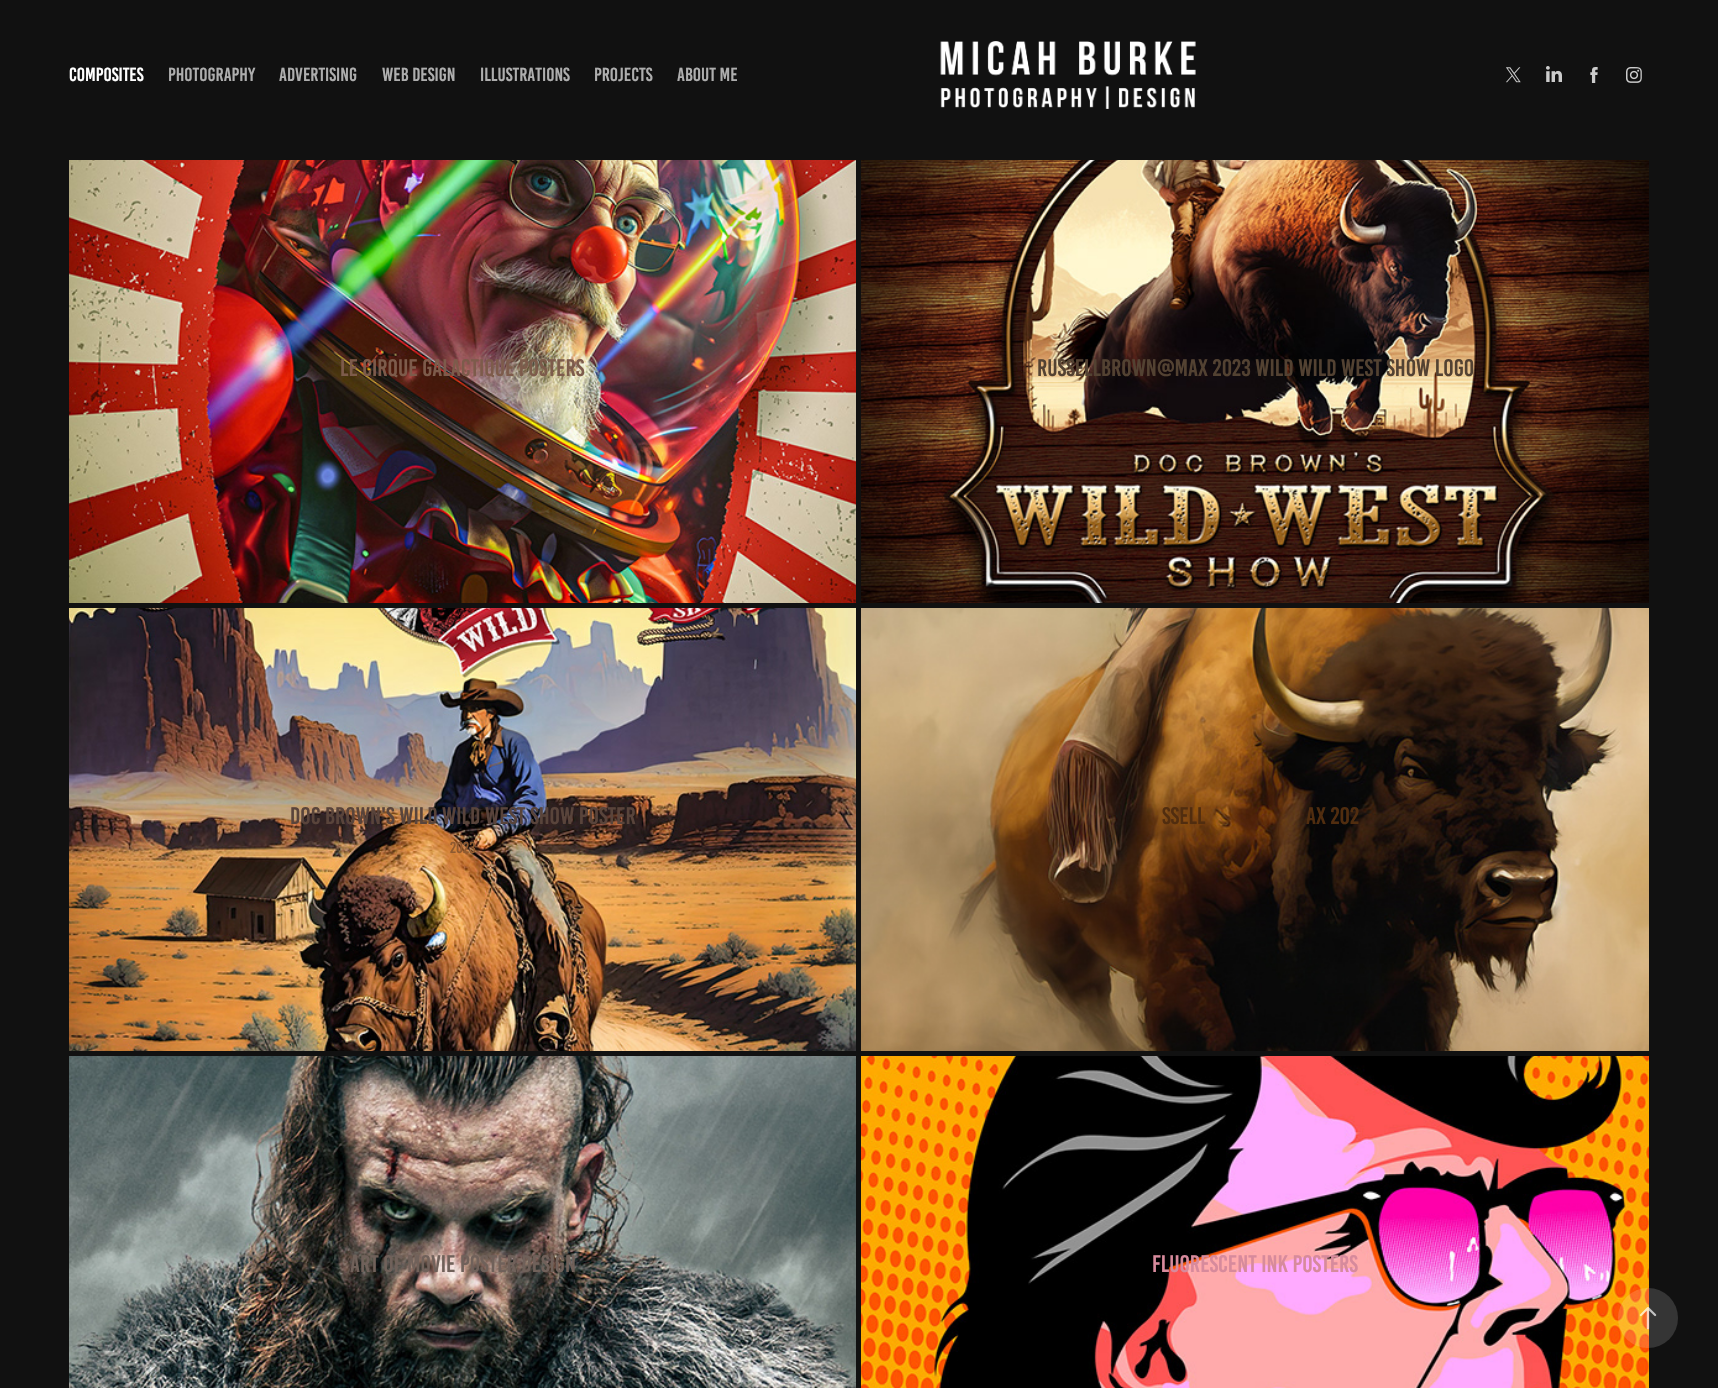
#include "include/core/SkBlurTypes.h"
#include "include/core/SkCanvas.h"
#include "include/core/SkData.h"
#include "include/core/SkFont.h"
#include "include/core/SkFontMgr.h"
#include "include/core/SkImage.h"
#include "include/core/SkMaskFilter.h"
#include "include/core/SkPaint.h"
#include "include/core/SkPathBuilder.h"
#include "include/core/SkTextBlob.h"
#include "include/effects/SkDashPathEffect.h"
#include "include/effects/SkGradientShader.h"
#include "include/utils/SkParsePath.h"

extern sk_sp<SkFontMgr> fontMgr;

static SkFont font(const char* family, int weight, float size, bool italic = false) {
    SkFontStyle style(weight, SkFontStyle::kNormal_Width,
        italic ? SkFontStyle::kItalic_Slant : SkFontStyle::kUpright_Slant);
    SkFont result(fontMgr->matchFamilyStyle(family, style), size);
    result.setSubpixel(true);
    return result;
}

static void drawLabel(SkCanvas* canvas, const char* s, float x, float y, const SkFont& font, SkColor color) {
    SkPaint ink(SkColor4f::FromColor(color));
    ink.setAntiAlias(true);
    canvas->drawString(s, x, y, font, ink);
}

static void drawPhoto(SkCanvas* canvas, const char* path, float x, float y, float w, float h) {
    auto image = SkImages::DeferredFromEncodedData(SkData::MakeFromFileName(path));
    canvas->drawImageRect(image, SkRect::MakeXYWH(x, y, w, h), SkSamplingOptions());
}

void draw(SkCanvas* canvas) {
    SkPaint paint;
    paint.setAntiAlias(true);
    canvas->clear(0xFF111111);
    SkFont font1 = font("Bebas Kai", 400, 19);
    drawLabel(canvas, "COMPOSITES", 69, 81, font1, 0xFFFFFFFF);
    drawLabel(canvas, "PHOTOGRAPHY", 168, 81, font1, 0xFFAEAEAE);
    drawLabel(canvas, "ADVERTISING", 279, 81, font1, 0xFFAEAEAE);
    drawLabel(canvas, "WEB DESIGN", 382, 81, font1, 0xFFAEAEAE);
    drawLabel(canvas, "ILLUSTRATIONS", 480, 81, font1, 0xFFAEAEAE);
    drawLabel(canvas, "PROJECTS", 594, 81, font1, 0xFFAEAEAE);
    drawLabel(canvas, "ABOUT ME", 677, 81, font1, 0xFFAEAEAE);
    drawPhoto(canvas, "assets/img1.png", 940, 41, 256, 68);
    drawPhoto(canvas, "assets/img2.png", 1506, 67, 15, 16);
    drawPhoto(canvas, "assets/img3.png", 1546, 66, 16, 16);
    drawPhoto(canvas, "assets/img4.png", 1590, 67, 8, 16);
    drawPhoto(canvas, "assets/img5.png", 1626, 67, 16, 16);
    drawPhoto(canvas, "assets/img6.png", 69, 160, 787, 443);
    SkFont font2 = font("Bebas Kai", 400, 24);
    drawLabel(canvas, "LE CIRQUE GALACTIQUE POSTERS", 340, 376, font2, 0xFF7D5B4B);
    drawPhoto(canvas, "assets/img7.png", 861, 160, 788, 443);
    drawLabel(canvas, "RUSSELLBROWN@MAX 2023 WILD WILD WEST SHOW LOGO", 1037, 376, font2, 0xFF534232);
    drawPhoto(canvas, "assets/img8.png", 69, 608, 787, 443);
    drawLabel(canvas, "DOC BROWN'S WILD WILD WEST SHOW POSTER", 290, 824, font2, 0xFF59443B);
    SkFont font3 = font("Bebas Kai", 400, 16);
    drawLabel(canvas, "2023", 450, 853, font3, 0xFF8F5A30);
    drawPhoto(canvas, "assets/img9.png", 861, 608, 788, 443);
    drawLabel(canvas, "SSELL", 1162, 824, font2, 0xFF512D0F);
    drawLabel(canvas, "AX 202", 1306, 824, font2, 0xFF512D0F);
    drawPhoto(canvas, "assets/img10.png", 69, 1056, 787, 332);
    drawLabel(canvas, "ART OF MOVIE POSTER DESIGN", 350, 1272, font2, 0xFF70615A);
    drawLabel(canvas, "2", 469, 1301, font3, 0xFF70615A);
    drawPhoto(canvas, "assets/img11.png", 861, 1056, 788, 332);
    drawLabel(canvas, "FLUORESCENT INK POSTERS", 1152, 1272, font2, 0xFFD78A9C);
    paint.setColor(0x26FFFFFF);
    canvas->drawCircle(1648, 1318, 30, paint);
    drawPhoto(canvas, "assets/img12.png", 1639, 1307, 18, 23);
}
